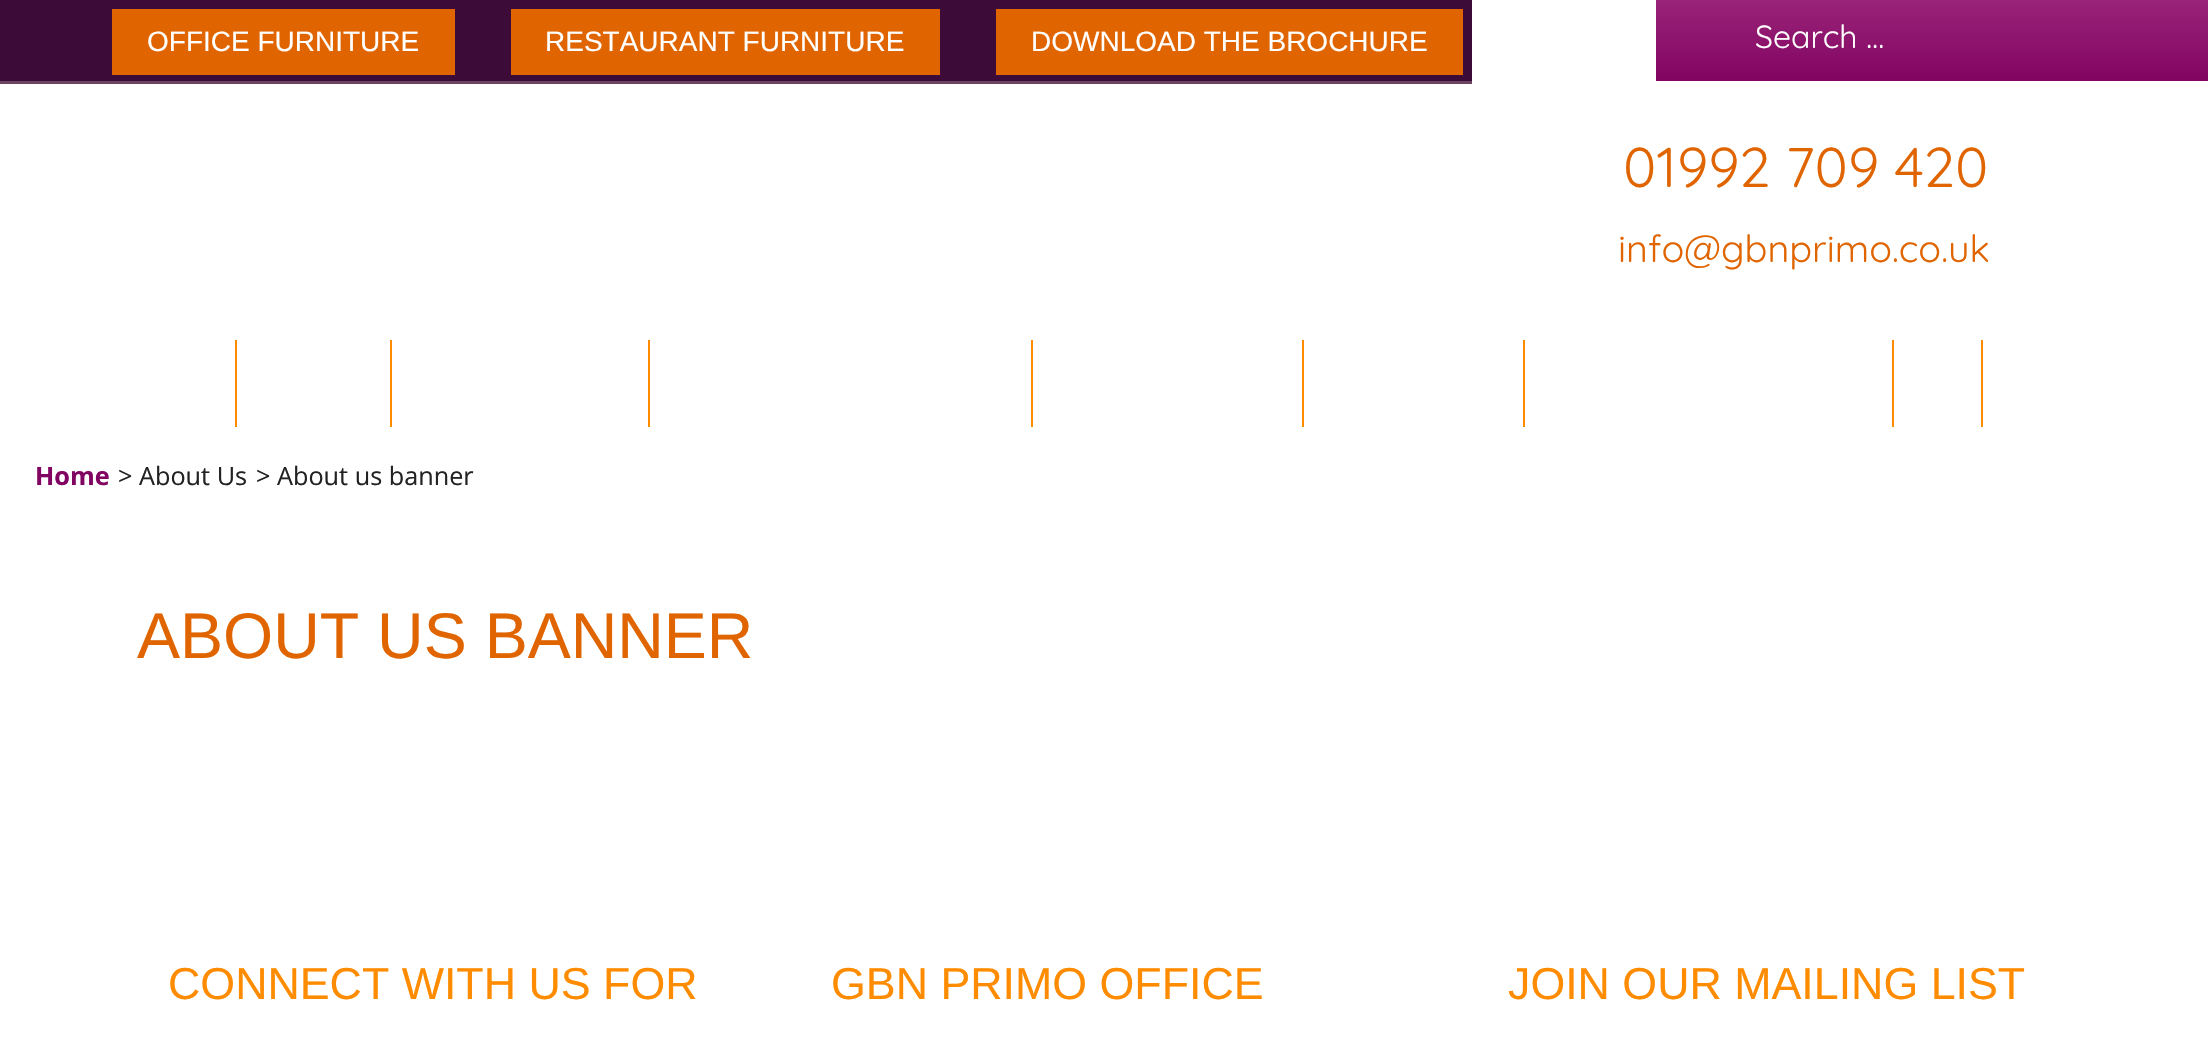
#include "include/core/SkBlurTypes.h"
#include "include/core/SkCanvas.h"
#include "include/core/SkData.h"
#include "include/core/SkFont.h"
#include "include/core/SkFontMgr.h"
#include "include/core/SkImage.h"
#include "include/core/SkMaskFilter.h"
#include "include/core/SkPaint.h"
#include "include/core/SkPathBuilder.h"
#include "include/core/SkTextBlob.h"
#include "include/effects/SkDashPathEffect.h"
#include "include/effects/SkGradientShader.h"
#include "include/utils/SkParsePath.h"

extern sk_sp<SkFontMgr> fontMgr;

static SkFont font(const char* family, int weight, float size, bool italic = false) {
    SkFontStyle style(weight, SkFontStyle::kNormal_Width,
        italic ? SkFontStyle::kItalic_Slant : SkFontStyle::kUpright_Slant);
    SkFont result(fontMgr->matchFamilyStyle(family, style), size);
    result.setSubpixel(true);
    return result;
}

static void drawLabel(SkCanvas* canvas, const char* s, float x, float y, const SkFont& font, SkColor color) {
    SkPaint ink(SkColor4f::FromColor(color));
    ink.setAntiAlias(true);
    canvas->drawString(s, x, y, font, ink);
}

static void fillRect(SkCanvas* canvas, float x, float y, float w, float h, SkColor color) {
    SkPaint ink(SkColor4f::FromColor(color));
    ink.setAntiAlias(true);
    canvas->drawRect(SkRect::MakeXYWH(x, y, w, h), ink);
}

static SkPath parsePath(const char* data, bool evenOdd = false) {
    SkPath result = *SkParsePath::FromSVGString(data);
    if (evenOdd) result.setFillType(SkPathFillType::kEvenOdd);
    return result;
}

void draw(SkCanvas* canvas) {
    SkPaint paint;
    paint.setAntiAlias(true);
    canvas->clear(0xFFFFFFFF);
    paint.setColor(0xFF6A4460);
    canvas->drawPath(parsePath("M0 80V84H1472V4V80Z"), paint);
    fillRect(canvas, 0, 0, 1472, 81, 0xFF3D0B37);
    fillRect(canvas, 112, 9, 343, 66, 0xFFE06501);
    SkFont font1 = font("Liberation Sans", 400, 28);
    drawLabel(canvas, "OFFICE FURNITURE", 147, 51, font1, 0xFFFFFFFF);
    fillRect(canvas, 511, 9, 429, 66, 0xFFE06501);
    drawLabel(canvas, "RESTAURANT FURNITURE", 545, 51, font1, 0xFFFFFFFF);
    fillRect(canvas, 996, 9, 467, 66, 0xFFE06501);
    drawLabel(canvas, "DOWNLOAD THE BROCHURE", 1031, 51, font1, 0xFFFFFFFF);
    {
        const SkColor colors[] = {0xFF820462, 0xFF992478};
        const float stops[] = {0, 1};
        const SkPoint ends[] = {{1932, 81}, {1932, 0}};
        paint.setShader(SkGradientShader::MakeLinear(ends, colors, stops, 2, SkTileMode::kClamp));
        paint.setAlpha(255);
    }
    canvas->drawRect(SkRect::MakeXYWH(1656, 0, 552, 81), paint);
    SkFont font2 = font("Quicksand", 400, 32);
    drawLabel(canvas, "Search …", 1755, 48, font2, 0xFFFFFFFF);
    SkFont font3 = font("Quicksand", 400, 56);
    drawLabel(canvas, "01992 709 420", 1623, 187, font3, 0xFFE06501);
    SkFont font4 = font("Quicksand", 400, 37.75f);
    drawLabel(canvas, "info@gbnprimo.co.uk", 1618, 262, font4, 0xFFE06501);
    fillRect(canvas, 235, 340, 2, 87, 0xFFFF8C00);
    fillRect(canvas, 390, 340, 2, 87, 0xFFFF8C00);
    fillRect(canvas, 648, 340, 2, 87, 0xFFFF8C00);
    fillRect(canvas, 1031, 340, 2, 87, 0xFFFF8C00);
    fillRect(canvas, 1302, 340, 2, 87, 0xFFFF8C00);
    fillRect(canvas, 1523, 340, 2, 87, 0xFFFF8C00);
    fillRect(canvas, 1892, 340, 2, 87, 0xFFFF8C00);
    fillRect(canvas, 1981, 340, 2, 87, 0xFFFF8C00);
    SkFont font5 = font("Open Sans", 700, 25.25f);
    drawLabel(canvas, "Home", 35, 485, font5, 0xFF820462);
    SkFont font6 = font("Open Sans", 400, 25.25f);
    drawLabel(canvas, "> About Us", 118, 485, font6, 0xFF222222);
    drawLabel(canvas, "> About us banner", 256, 485, font6, 0xFF222222);
    SkFont font7 = font("Liberation Sans", 400, 64.5f);
    drawLabel(canvas, "ABOUT US BANNER", 137, 658, font7, 0xFFE06501);
    SkFont font8 = font("Liberation Sans", 400, 44.75f);
    drawLabel(canvas, "CONNECT WITH US FOR", 168, 999, font8, 0xFFFF8C00);
    drawLabel(canvas, "GBN PRIMO OFFICE", 831, 999, font8, 0xFFFF8C00);
    drawLabel(canvas, "JOIN OUR MAILING LIST", 1508, 999, font8, 0xFFFF8C00);
}
